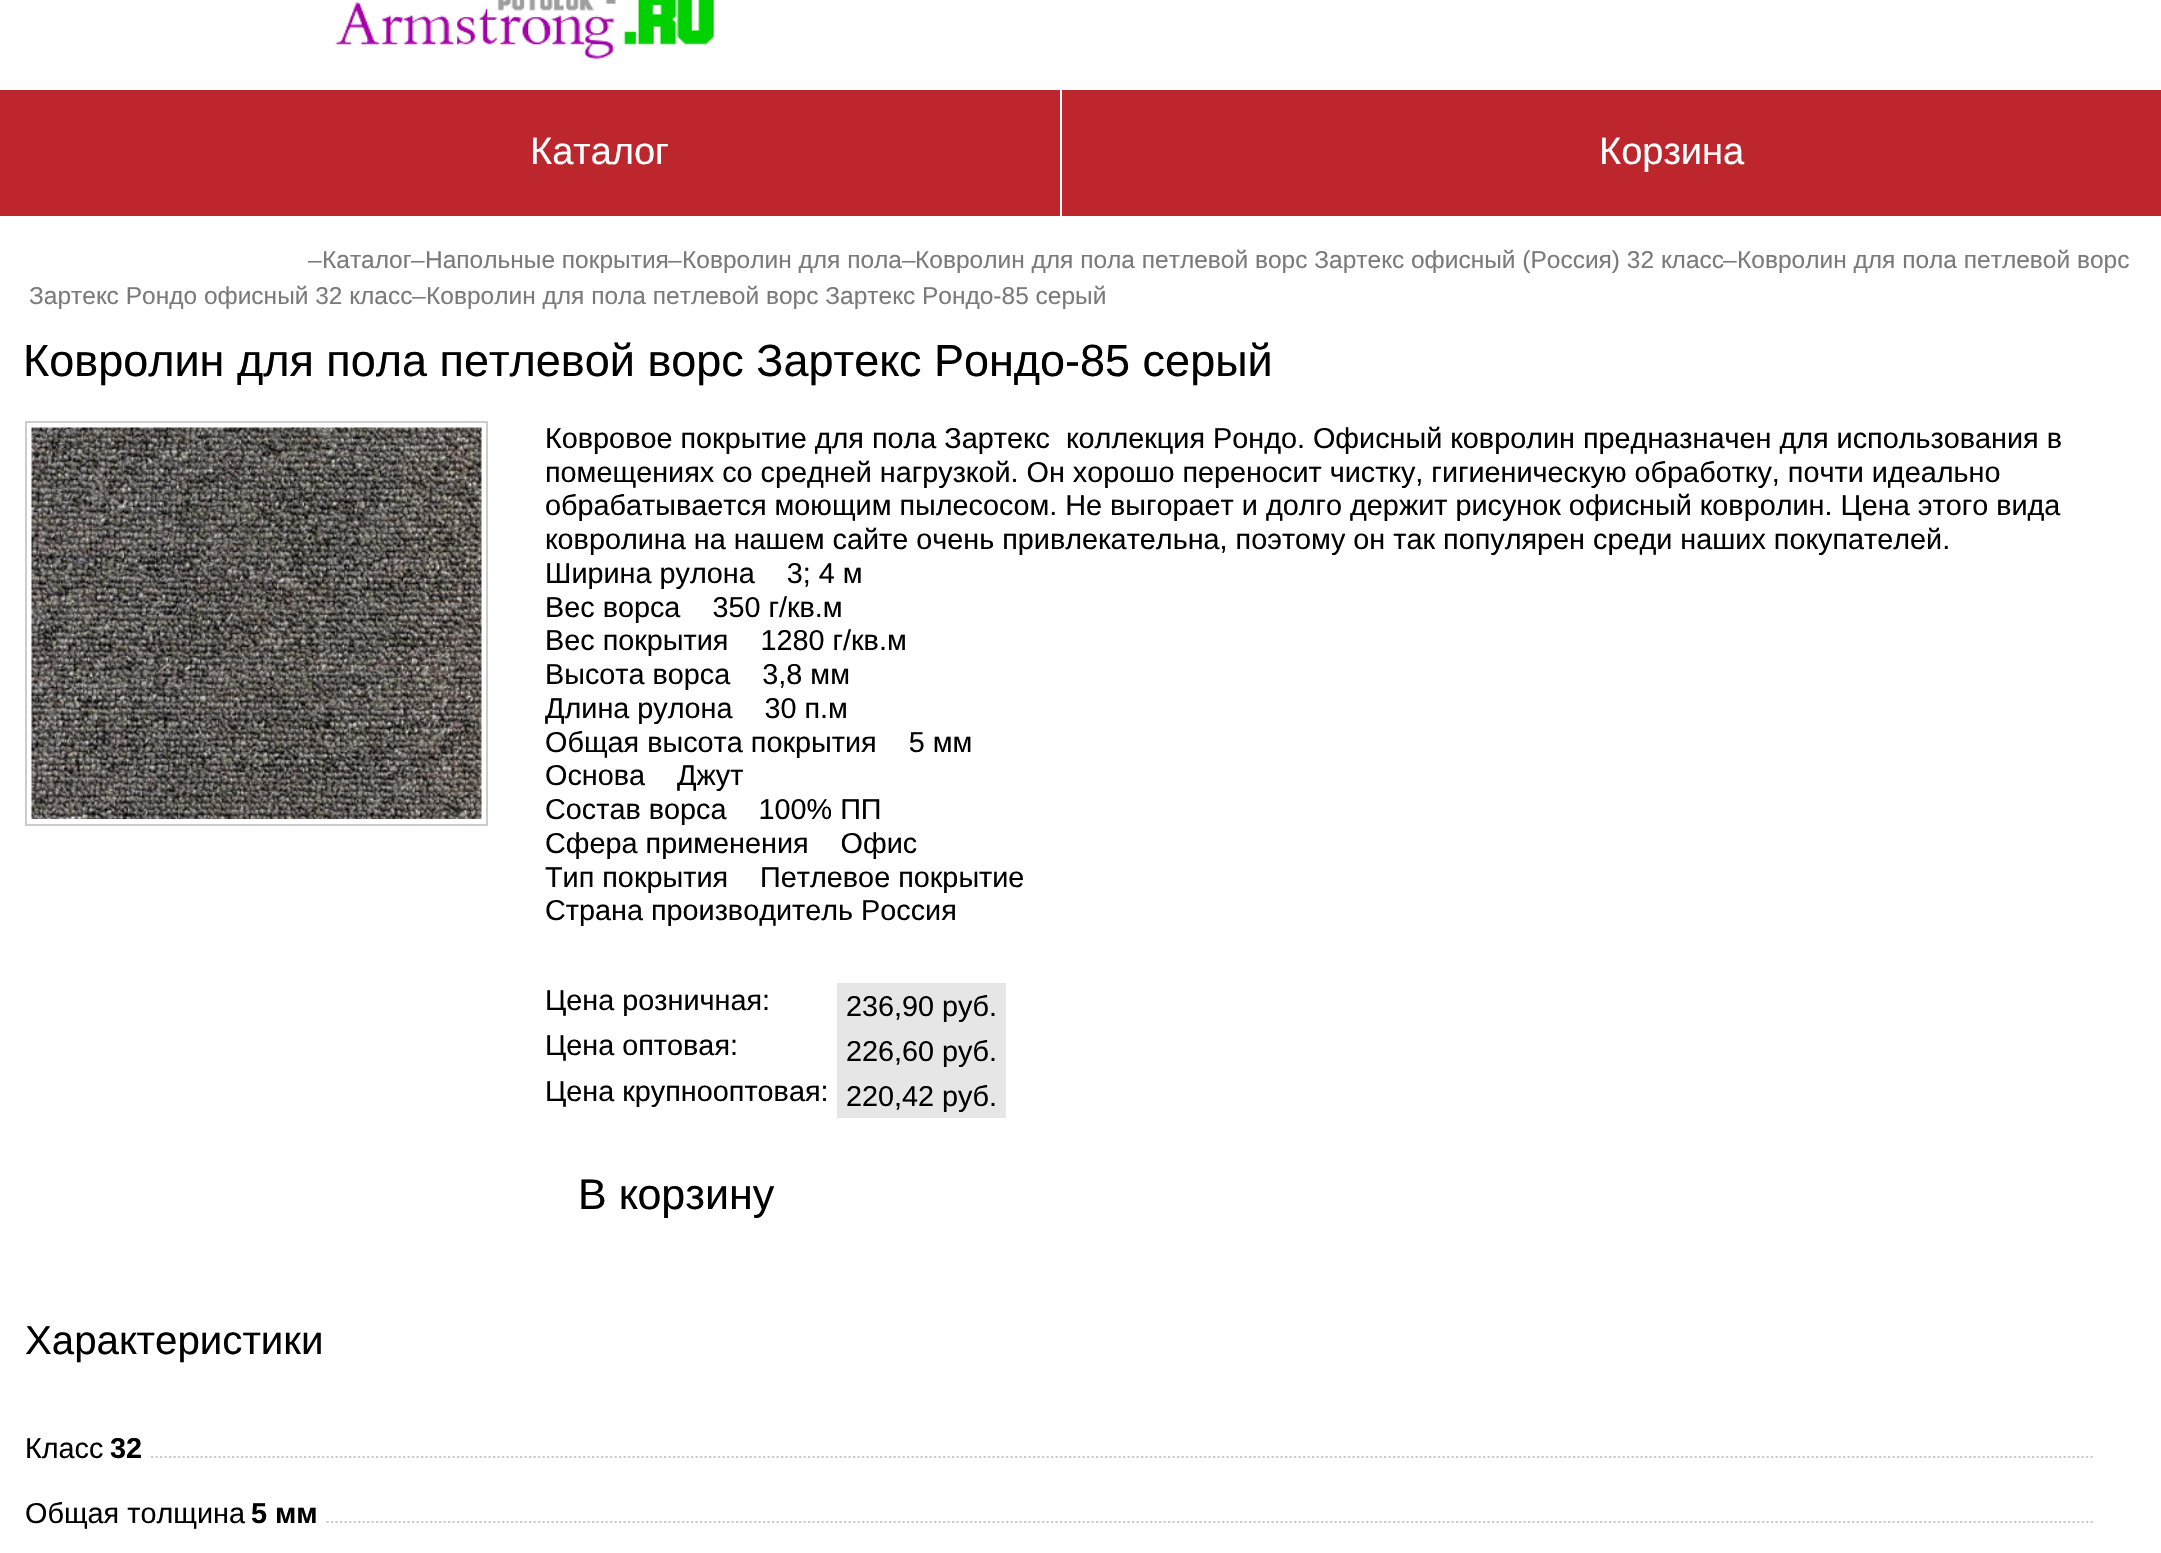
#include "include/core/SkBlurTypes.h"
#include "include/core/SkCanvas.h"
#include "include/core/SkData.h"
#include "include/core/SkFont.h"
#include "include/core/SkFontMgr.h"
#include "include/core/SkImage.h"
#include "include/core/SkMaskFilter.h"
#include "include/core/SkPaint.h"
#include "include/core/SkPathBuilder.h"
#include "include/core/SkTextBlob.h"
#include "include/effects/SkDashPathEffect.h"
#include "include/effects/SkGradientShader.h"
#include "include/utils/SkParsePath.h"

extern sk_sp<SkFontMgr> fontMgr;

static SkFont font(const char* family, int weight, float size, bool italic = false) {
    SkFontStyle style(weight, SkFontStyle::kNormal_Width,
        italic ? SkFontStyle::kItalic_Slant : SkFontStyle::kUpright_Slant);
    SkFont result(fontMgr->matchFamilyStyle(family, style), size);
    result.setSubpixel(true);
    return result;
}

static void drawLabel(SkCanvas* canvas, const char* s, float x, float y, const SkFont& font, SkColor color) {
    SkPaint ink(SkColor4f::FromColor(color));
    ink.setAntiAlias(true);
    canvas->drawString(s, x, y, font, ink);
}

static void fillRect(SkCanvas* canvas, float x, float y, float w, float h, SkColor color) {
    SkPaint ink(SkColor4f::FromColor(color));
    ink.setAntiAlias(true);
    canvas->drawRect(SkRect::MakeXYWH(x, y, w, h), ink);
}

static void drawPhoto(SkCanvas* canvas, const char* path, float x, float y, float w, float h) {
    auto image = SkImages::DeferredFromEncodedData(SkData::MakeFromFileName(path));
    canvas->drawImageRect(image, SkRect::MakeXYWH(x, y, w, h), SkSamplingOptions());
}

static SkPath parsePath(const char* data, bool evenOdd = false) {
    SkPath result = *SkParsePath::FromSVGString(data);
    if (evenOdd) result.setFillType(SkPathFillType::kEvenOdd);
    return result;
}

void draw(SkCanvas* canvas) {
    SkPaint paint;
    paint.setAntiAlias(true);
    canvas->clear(0xFFFFFFFF);
    drawPhoto(canvas, "assets/img1.png", 335, 0, 381, 60);
    fillRect(canvas, 0, 90, 2161, 126, 0xFFBC262C);
    fillRect(canvas, 1060, 90, 2, 126, 0xFFFFFFFF);
    SkFont font1 = font("Liberation Sans", 400, 38);
    drawLabel(canvas, "Каталог", 530, 164, font1, 0xFFFFFFFF);
    drawLabel(canvas, "Корзина", 1599, 164, font1, 0xFFFFFFFF);
    SkFont font2 = font("Liberation Sans", 400, 24.5f, true);
    drawLabel(canvas, "–", 308, 268, font2, 0xFF7A7A7A);
    SkFont font3 = font("Liberation Sans", 400, 24.5f);
    drawLabel(canvas, "Каталог", 322, 268, font3, 0xFF7A7A7A);
    drawLabel(canvas, "–", 411, 268, font2, 0xFF7A7A7A);
    drawLabel(canvas, "Напольные покрытия", 425, 268, font3, 0xFF7A7A7A);
    drawLabel(canvas, "–", 668, 268, font2, 0xFF7A7A7A);
    drawLabel(canvas, "Ковролин для пола", 682, 268, font3, 0xFF7A7A7A);
    drawLabel(canvas, "–", 902, 268, font2, 0xFF7A7A7A);
    drawLabel(canvas, "Ковролин для пола петлевой ворс Зартекс офисный (Россия) 32 класс", 915, 268, font3, 0xFF7A7A7A);
    drawLabel(canvas, "–", 1723, 268, font2, 0xFF7A7A7A);
    drawLabel(canvas, "Ковролин для пола петлевой ворс", 1737, 268, font3, 0xFF7A7A7A);
    drawLabel(canvas, "Зартекс Рондо офисный 32 класс", 29, 304, font3, 0xFF7A7A7A);
    drawLabel(canvas, "–", 412, 304, font2, 0xFF7A7A7A);
    drawLabel(canvas, "Ковролин для пола петлевой ворс Зартекс Рондо-85 серый", 426, 304, font3, 0xFF7A7A7A);
    SkFont font4 = font("Liberation Sans", 400, 45);
    drawLabel(canvas, "Ковролин для пола петлевой ворс Зартекс Рондо-85 серый", 23, 376, font4, 0xFF000000);
    paint.setStroke(true);
    paint.setStrokeWidth(2);
    paint.setColor(0xFFCCCCCC);
    canvas->drawRect(SkRect::MakeXYWH(26, 422, 461, 403), paint);
    drawPhoto(canvas, "assets/img2.png", 31, 427, 451, 392);
    SkFont font5 = font("Liberation Sans", 400, 28.8f);
    drawLabel(canvas, "Ковровое покрытие для пола Зартекс  коллекция Рондо. Oфисный кoвролин предназначен для использования в", 545, 448, font5, 0xFF000000);
    drawLabel(canvas, "помещениях со средней нагрузкой. Он хорошо переносит чистку, гигиеническую обработку, почти идеально", 545, 482, font5, 0xFF000000);
    drawLabel(canvas, "обрабатывается моющим пылесосом. Не выгорает и долго держит рисунок oфисный кoвролин. Цена этого вида", 545, 515, font5, 0xFF000000);
    drawLabel(canvas, "ковролина на нашем сайте очень привлекательна, поэтому он так популярен среди наших покупателей.", 545, 549, font5, 0xFF000000);
    drawLabel(canvas, "Ширина рулона    3; 4 м", 545, 583, font5, 0xFF000000);
    drawLabel(canvas, "Вес ворса    350 г/кв.м", 545, 617, font5, 0xFF000000);
    drawLabel(canvas, "Вес покрытия    1280 г/кв.м", 545, 650, font5, 0xFF000000);
    drawLabel(canvas, "Высота ворса    3,8 мм", 545, 684, font5, 0xFF000000);
    drawLabel(canvas, "Длина рулона    30 п.м", 545, 718, font5, 0xFF000000);
    drawLabel(canvas, "Общая высота покрытия    5 мм", 545, 752, font5, 0xFF000000);
    drawLabel(canvas, "Основа    Джут", 545, 785, font5, 0xFF000000);
    drawLabel(canvas, "Состав ворса    100% ПП", 545, 819, font5, 0xFF000000);
    drawLabel(canvas, "Сфера применения    Офис", 545, 853, font5, 0xFF000000);
    drawLabel(canvas, "Тип покрытия    Петлевое покрытие", 545, 887, font5, 0xFF000000);
    drawLabel(canvas, "Страна производитель Россия", 545, 920, font5, 0xFF000000);
    drawLabel(canvas, "Цена розничная:", 545, 1010, font5, 0xFF000000);
    fillRect(canvas, 837, 983, 169, 135, 0xFFE6E6E6);
    drawLabel(canvas, "236,90 руб.", 846, 1016, font5, 0xFF000000);
    drawLabel(canvas, "Цена оптовая:", 545, 1055, font5, 0xFF000000);
    drawLabel(canvas, "226,60 руб.", 846, 1061, font5, 0xFF000000);
    drawLabel(canvas, "Цена крупнооптовая:", 545, 1101, font5, 0xFF000000);
    drawLabel(canvas, "220,42 руб.", 846, 1106, font5, 0xFF000000);
    SkFont font6 = font("Liberation Sans", 400, 43);
    drawLabel(canvas, "В корзину", 578, 1209, font6, 0xFF000000);
    SkFont font7 = font("Liberation Sans", 400, 40.25f);
    drawLabel(canvas, "Характеристики", 25, 1354, font7, 0xFF000000);
    paint.setStrokeWidth(2.2f);
    paint.setPathEffect(SkDashPathEffect::Make({{2.25f, 2.25f}}, 0));
    canvas->drawPath(parsePath("M25 1457H2095"), paint);
    paint.setPathEffect(nullptr);
    fillRect(canvas, 25, 1455, 84, 4, 0xFFFFFFFF);
    drawLabel(canvas, "Класс", 25, 1458, font5, 0xFF000000);
    fillRect(canvas, 110, 1455, 39, 4, 0xFFFFFFFF);
    SkFont font8 = font("Liberation Sans", 700, 28.8f);
    drawLabel(canvas, "32", 110, 1458, font8, 0xFF000000);
    paint.setPathEffect(SkDashPathEffect::Make({{2.25f, 2.25f}}, 0));
    canvas->drawPath(parsePath("M25 1522H2095"), paint);
    paint.setPathEffect(nullptr);
    fillRect(canvas, 25, 1520, 299, 4, 0xFFFFFFFF);
    drawLabel(canvas, "Общая толщина", 25, 1523, font5, 0xFF000000);
    drawLabel(canvas, "5 мм", 251, 1523, font8, 0xFF000000);
}
